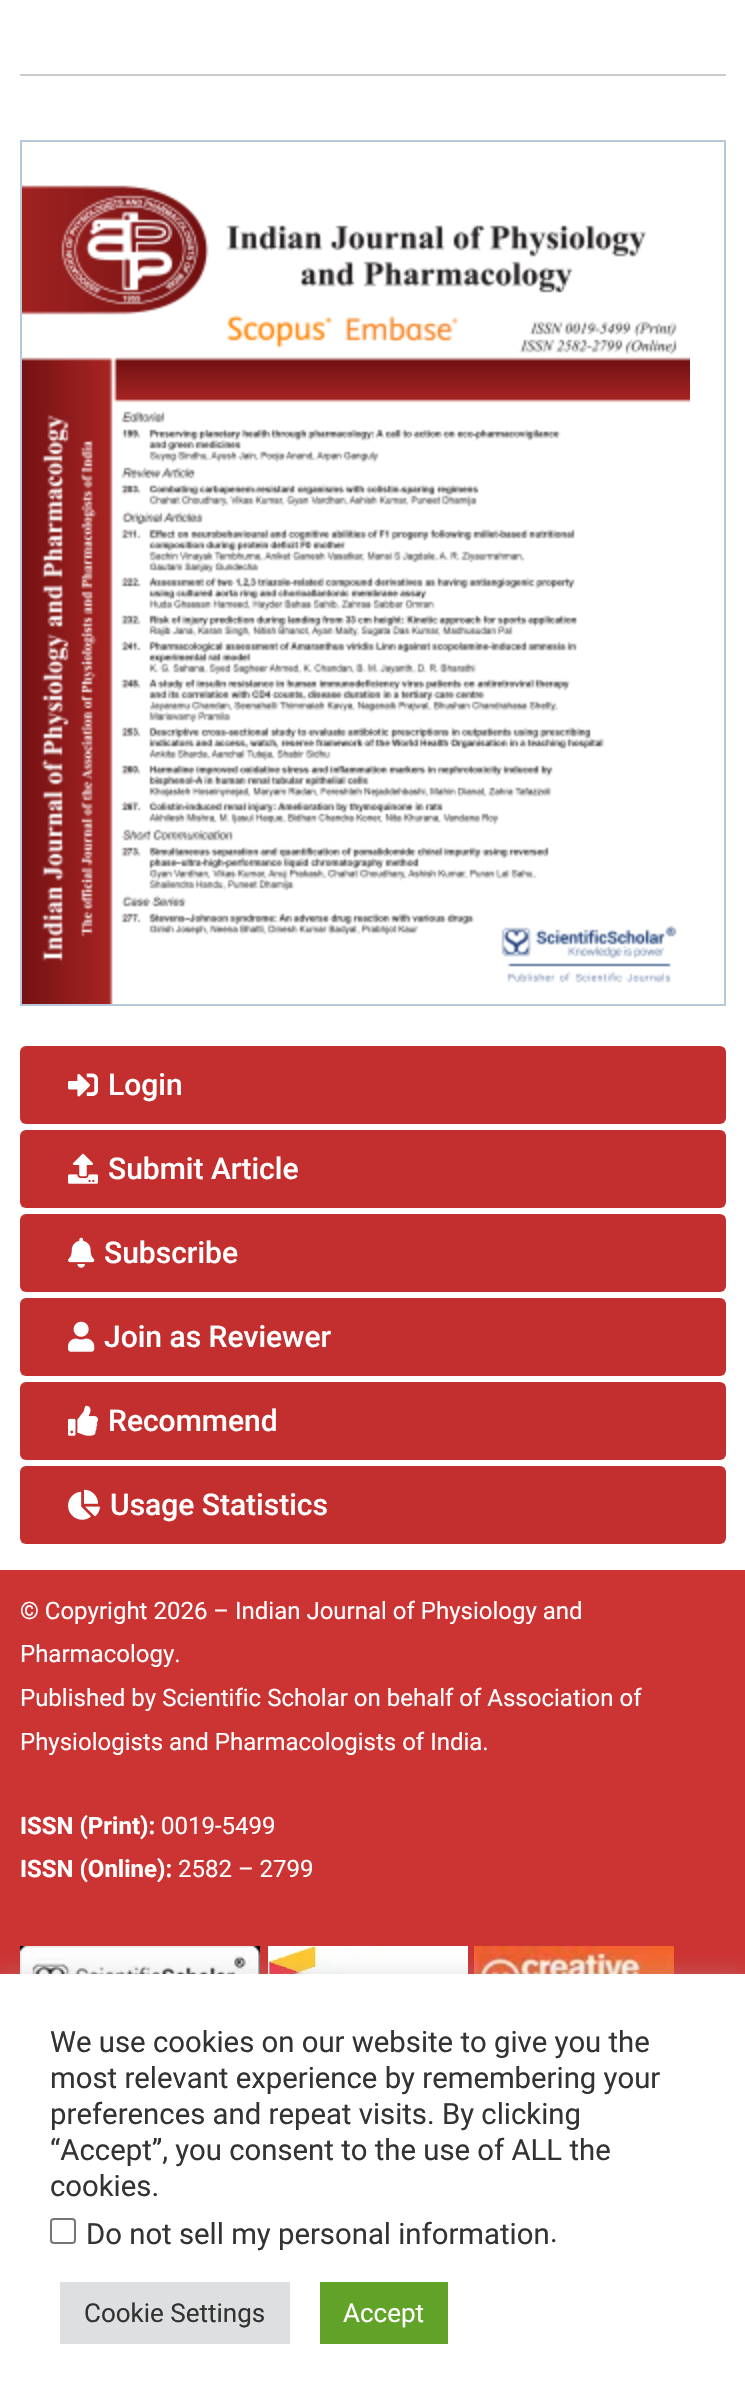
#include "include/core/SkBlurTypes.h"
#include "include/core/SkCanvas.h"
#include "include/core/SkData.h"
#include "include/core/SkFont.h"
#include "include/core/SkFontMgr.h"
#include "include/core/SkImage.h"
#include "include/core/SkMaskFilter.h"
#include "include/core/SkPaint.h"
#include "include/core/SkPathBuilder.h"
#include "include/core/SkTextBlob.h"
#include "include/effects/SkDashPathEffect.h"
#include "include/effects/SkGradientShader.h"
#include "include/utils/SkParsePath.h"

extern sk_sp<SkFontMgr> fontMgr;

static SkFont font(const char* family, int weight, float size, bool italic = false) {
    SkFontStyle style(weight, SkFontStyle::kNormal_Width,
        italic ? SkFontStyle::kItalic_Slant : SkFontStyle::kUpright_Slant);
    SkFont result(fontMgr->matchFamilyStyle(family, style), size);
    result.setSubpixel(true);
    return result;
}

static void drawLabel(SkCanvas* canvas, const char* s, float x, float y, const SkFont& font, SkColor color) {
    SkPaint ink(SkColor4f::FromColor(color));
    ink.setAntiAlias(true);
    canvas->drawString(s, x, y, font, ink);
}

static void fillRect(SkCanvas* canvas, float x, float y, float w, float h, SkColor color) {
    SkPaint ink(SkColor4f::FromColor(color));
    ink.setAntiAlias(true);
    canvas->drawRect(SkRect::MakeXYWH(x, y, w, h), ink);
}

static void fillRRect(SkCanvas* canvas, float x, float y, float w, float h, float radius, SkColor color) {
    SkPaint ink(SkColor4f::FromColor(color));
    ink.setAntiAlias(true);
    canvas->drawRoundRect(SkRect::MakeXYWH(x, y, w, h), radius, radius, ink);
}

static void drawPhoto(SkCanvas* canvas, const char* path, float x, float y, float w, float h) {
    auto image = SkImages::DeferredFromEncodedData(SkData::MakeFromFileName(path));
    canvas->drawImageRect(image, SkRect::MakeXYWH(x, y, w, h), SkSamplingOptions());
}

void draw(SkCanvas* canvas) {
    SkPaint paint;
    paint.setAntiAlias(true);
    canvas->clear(0xFFFFFFFF);
    fillRect(canvas, 20, 74, 706, 2, 0xFFCCCCCC);
    paint.setStroke(true);
    paint.setStrokeWidth(2);
    paint.setColor(0xFFB6C9DB);
    canvas->drawRect(SkRect::MakeXYWH(21, 141, 704, 864), paint);
    drawPhoto(canvas, "assets/img1.png", 22, 185, 668, 819);
    fillRRect(canvas, 20, 1046, 706, 78, 6, 0xFFC32F2F);
    drawPhoto(canvas, "assets/img2.png", 68, 1073, 30, 24);
    SkFont font1 = font("Roboto", 500, 30);
    drawLabel(canvas, "Login", 108, 1095, font1, 0xFFFFFFFF);
    fillRRect(canvas, 20, 1130, 706, 78, 6, 0xFFC32F2F);
    drawPhoto(canvas, "assets/img3.png", 68, 1153, 30, 31);
    drawLabel(canvas, "Submit Article", 108, 1179, font1, 0xFFFFFFFF);
    fillRRect(canvas, 20, 1214, 706, 78, 6, 0xFFC32F2F);
    drawPhoto(canvas, "assets/img4.png", 68, 1237, 27, 31);
    drawLabel(canvas, "Subscribe", 104, 1263, font1, 0xFFFFFFFF);
    fillRRect(canvas, 20, 1298, 706, 78, 6, 0xFFC32F2F);
    drawPhoto(canvas, "assets/img5.png", 68, 1321, 27, 31);
    drawLabel(canvas, "Join as Reviewer", 104, 1347, font1, 0xFFFFFFFF);
    fillRRect(canvas, 20, 1382, 706, 78, 6, 0xFFC32F2F);
    drawPhoto(canvas, "assets/img6.png", 68, 1405, 30, 31);
    drawLabel(canvas, "Recommend", 108, 1431, font1, 0xFFFFFFFF);
    fillRRect(canvas, 20, 1466, 706, 78, 6, 0xFFC32F2F);
    drawPhoto(canvas, "assets/img7.png", 68, 1489, 32, 31);
    drawLabel(canvas, "Usage Statistics", 110, 1515, font1, 0xFFFFFFFF);
    fillRect(canvas, 0, 1570, 745, 404, 0xFFCC3333);
    SkFont font2 = font("Roboto", 400, 24);
    drawLabel(canvas, "© Copyright 2026 – Indian Journal of Physiology and", 20, 1619, font2, 0xFFFFFFFF);
    drawLabel(canvas, "Pharmacology.", 20, 1662, font2, 0xFFFFFFFF);
    drawLabel(canvas, "Published by Scientific Scholar on behalf of Association of", 20, 1706, font2, 0xFFFFFFFF);
    drawLabel(canvas, "Physiologists and Pharmacologists of India.", 20, 1750, font2, 0xFFFFFFFF);
    SkFont font3 = font("Roboto", 700, 24);
    drawLabel(canvas, "ISSN (Print):", 20, 1834, font3, 0xFFFFFFFF);
    drawLabel(canvas, "0019-5499", 161, 1834, font2, 0xFFFFFFFF);
    drawLabel(canvas, "ISSN (Online):", 20, 1877, font3, 0xFFFFFFFF);
    drawLabel(canvas, "2582 – 2799", 178, 1877, font2, 0xFFFFFFFF);
    drawPhoto(canvas, "assets/img8.png", 20, 1946, 240, 28);
    drawPhoto(canvas, "assets/img9.png", 268, 1946, 200, 28);
    drawPhoto(canvas, "assets/img10.png", 474, 1946, 200, 28);
    paint.setStroke(false);
    paint.setColor(0x4DACABAB);
    paint.setMaskFilter(SkMaskFilter::MakeBlur(kNormal_SkBlurStyle, 10));
    canvas->drawRect(SkRect::MakeXYWH(0, 1972, 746, 430), paint);
    paint.setMaskFilter(nullptr);
    fillRect(canvas, 0, 1974, 745, 430, 0xFFFFFFFF);
    SkFont font4 = font("Roboto", 400, 29.3f);
    drawLabel(canvas, "We use cookies on our website to give you the", 50, 2052, font4, 0xFF333333);
    drawLabel(canvas, "most relevant experience by remembering your", 50, 2088, font4, 0xFF333333);
    drawLabel(canvas, "preferences and repeat visits. By clicking", 50, 2124, font4, 0xFF333333);
    drawLabel(canvas, "“Accept”, you consent to the use of ALL the", 50, 2160, font4, 0xFF333333);
    drawLabel(canvas, "cookies.", 50, 2196, font4, 0xFF333333);
    paint.setStroke(true);
    paint.setColor(0xFF767676);
    canvas->drawRoundRect(SkRect::MakeXYWH(51, 2219, 24, 24), 3, 3, paint);
    drawLabel(canvas, "Do not sell my personal information", 86, 2244, font4, 0xFF333333);
    drawLabel(canvas, ".", 550, 2242, font4, 0xFF333333);
    fillRect(canvas, 60, 2282, 230, 62, 0xFFDEDFE0);
    SkFont font5 = font("Roboto", 400, 26);
    drawLabel(canvas, "Cookie Settings", 84, 2322, font5, 0xFF333333);
    fillRect(canvas, 320, 2282, 128, 62, 0xFF61A229);
    drawLabel(canvas, "Accept", 343, 2322, font5, 0xFFFFFFFF);
}
